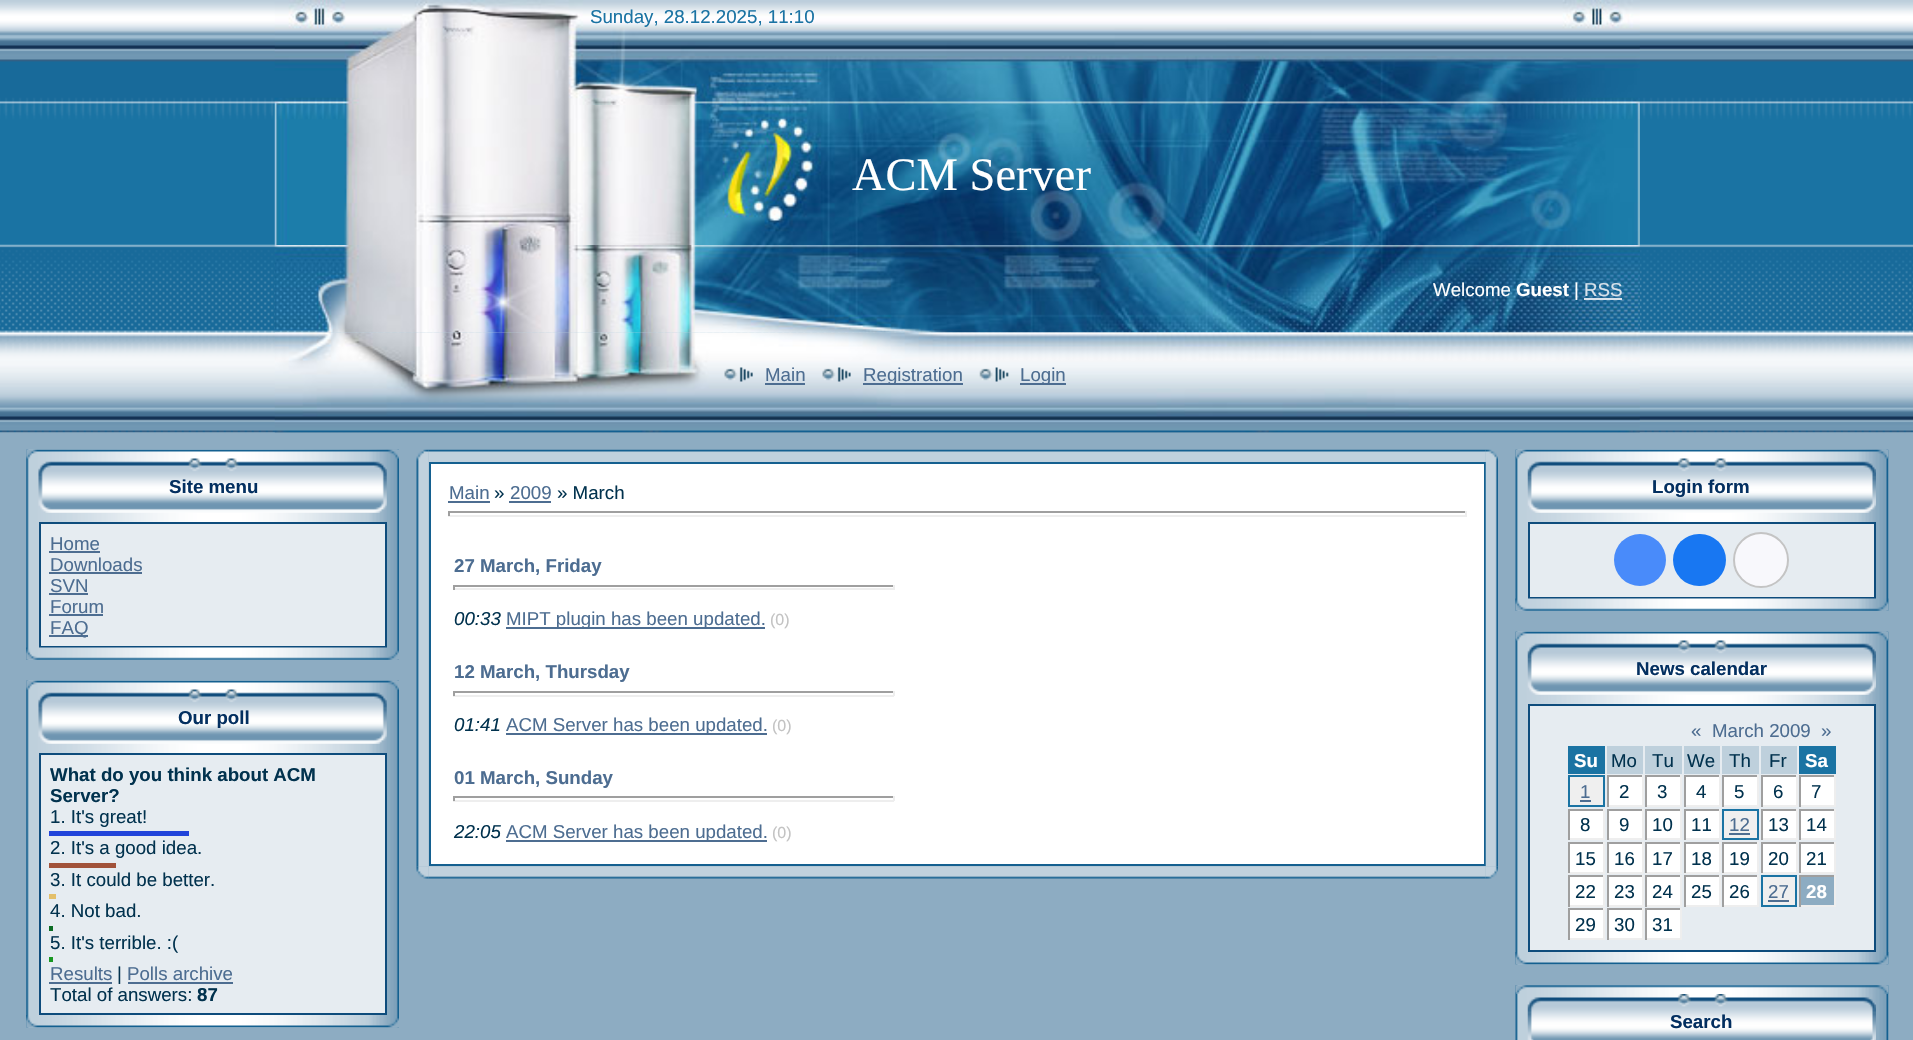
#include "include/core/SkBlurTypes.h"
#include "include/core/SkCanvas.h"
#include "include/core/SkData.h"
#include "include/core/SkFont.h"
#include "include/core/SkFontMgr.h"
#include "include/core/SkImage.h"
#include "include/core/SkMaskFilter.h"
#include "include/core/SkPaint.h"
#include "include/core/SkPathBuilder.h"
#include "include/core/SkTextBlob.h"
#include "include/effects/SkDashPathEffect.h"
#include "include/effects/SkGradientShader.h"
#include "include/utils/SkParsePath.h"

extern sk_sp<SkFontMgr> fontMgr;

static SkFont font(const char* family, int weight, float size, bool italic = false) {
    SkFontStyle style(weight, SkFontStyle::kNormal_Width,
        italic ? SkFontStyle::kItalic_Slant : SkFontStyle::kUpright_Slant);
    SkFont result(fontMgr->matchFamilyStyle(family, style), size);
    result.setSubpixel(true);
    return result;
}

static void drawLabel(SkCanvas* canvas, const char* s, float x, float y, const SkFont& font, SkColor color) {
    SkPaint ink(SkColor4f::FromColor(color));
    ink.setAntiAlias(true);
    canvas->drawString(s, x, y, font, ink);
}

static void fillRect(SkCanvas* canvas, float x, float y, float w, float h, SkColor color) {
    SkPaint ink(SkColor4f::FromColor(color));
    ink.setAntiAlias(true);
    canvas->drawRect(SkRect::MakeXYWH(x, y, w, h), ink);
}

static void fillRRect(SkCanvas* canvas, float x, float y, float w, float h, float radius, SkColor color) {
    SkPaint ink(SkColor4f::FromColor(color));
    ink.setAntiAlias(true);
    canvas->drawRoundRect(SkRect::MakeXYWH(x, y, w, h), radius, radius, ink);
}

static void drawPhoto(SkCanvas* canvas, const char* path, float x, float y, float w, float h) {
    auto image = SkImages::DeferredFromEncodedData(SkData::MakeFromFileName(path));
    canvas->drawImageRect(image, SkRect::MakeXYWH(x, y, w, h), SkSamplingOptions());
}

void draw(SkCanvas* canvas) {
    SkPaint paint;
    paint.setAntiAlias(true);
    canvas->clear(0xFF8DACC2);
    drawPhoto(canvas, "assets/img1.png", 0, 0, 1913, 433);
    drawPhoto(canvas, "assets/img2.png", 274, 0, 1366, 105);
    SkFont font1 = font("Liberation Sans", 400, 18.7f);
    drawLabel(canvas, "Sunday, 28.12.2025, 11:10", 590, 23, font1, 0xFF1A73A3);
    drawPhoto(canvas, "assets/img3.png", 274, 105, 1366, 140);
    SkFont font2 = font("Liberation Serif", 400, 46.5f);
    drawLabel(canvas, "ACM Server", 852, 190, font2, 0xFFFFFFFF);
    drawPhoto(canvas, "assets/img4.png", 274, 245, 1366, 88);
    drawLabel(canvas, "Welcome", 1433, 296, font1, 0xFFFFFFFF);
    SkFont font3 = font("Liberation Sans", 700, 18.7f);
    drawLabel(canvas, "Guest", 1516, 296, font3, 0xFFFFFFFF);
    drawLabel(canvas, "|", 1574, 296, font1, 0xFFFFFFFF);
    drawLabel(canvas, "RSS", 1584, 296, font1, 0xFFD8E2EB);
    fillRect(canvas, 1584, 298, 38, 2, 0xFFD8E2EB);
    drawPhoto(canvas, "assets/img5.png", 274, 332, 1366, 101);
    drawPhoto(canvas, "assets/img6.png", 724, 367, 29, 15);
    drawLabel(canvas, "Main", 765, 381, font1, 0xFF4D6D91);
    fillRect(canvas, 765, 383, 40, 2, 0xFF4D6D91);
    drawPhoto(canvas, "assets/img7.png", 822, 367, 29, 15);
    fillRect(canvas, 863, 383, 100, 2, 0xFF4D6D91);
    drawLabel(canvas, "Registration", 863, 381, font1, 0xFF4D6D91);
    drawPhoto(canvas, "assets/img8.png", 979, 367, 30, 15);
    fillRect(canvas, 1020, 383, 46, 2, 0xFF4D6D91);
    drawLabel(canvas, "Login", 1020, 381, font1, 0xFF4D6D91);
    drawPhoto(canvas, "assets/img9.png", 26, 449, 373, 211);
    drawPhoto(canvas, "assets/img10.png", 26, 449, 373, 10);
    drawPhoto(canvas, "assets/img11.png", 38, 458, 349, 55);
    drawLabel(canvas, "Site menu", 169, 493, font3, 0xFF032F60);
    paint.setColor(0xFFE6ECF1);
    canvas->drawRect(SkRect::MakeXYWH(40, 523, 346, 124), paint);
    paint.setStroke(true);
    paint.setStrokeWidth(2);
    paint.setColor(0xFF0E4C7C);
    canvas->drawRect(SkRect::MakeXYWH(40, 523, 346, 124), paint);
    drawLabel(canvas, "Home", 50, 550, font1, 0xFF4D6D91);
    fillRect(canvas, 49, 551, 51, 2, 0xFF4D6D91);
    drawLabel(canvas, "Downloads", 50, 571, font1, 0xFF4D6D91);
    fillRect(canvas, 49, 572, 93, 2, 0xFF4D6D91);
    drawLabel(canvas, "SVN", 50, 592, font1, 0xFF4D6D91);
    fillRect(canvas, 49, 593, 39, 2, 0xFF4D6D91);
    drawLabel(canvas, "Forum", 50, 613, font1, 0xFF4D6D91);
    fillRect(canvas, 49, 614, 54, 2, 0xFF4D6D91);
    fillRect(canvas, 49, 635, 39, 2, 0xFF4D6D91);
    drawLabel(canvas, "FAQ", 50, 634, font1, 0xFF4D6D91);
    drawPhoto(canvas, "assets/img12.png", 26, 647, 373, 13);
    drawPhoto(canvas, "assets/img13.png", 26, 680, 373, 348);
    drawPhoto(canvas, "assets/img10.png", 26, 680, 373, 10);
    drawPhoto(canvas, "assets/img11.png", 38, 689, 349, 55);
    drawLabel(canvas, "Our poll", 178, 724, font3, 0xFF032F60);
    paint.setStroke(false);
    paint.setColor(0xFFE6ECF1);
    canvas->drawRect(SkRect::MakeXYWH(40, 754, 346, 260), paint);
    paint.setStroke(true);
    paint.setColor(0xFF0E4C7C);
    canvas->drawRect(SkRect::MakeXYWH(40, 754, 346, 260), paint);
    drawLabel(canvas, "What do you think about ACM", 50, 781, font3, 0xFF01324E);
    drawLabel(canvas, "Server?", 50, 802, font3, 0xFF01324E);
    drawLabel(canvas, "1. It's great!", 50, 823, font1, 0xFF01324E);
    fillRect(canvas, 49, 831, 140, 5, 0xFF2144DA);
    drawLabel(canvas, "2. It's a good idea.", 50, 854, font1, 0xFF01324E);
    fillRect(canvas, 49, 863, 67, 5, 0xFFA1523A);
    drawLabel(canvas, "3. It could be better.", 50, 886, font1, 0xFF01324E);
    fillRect(canvas, 49, 894, 7, 5, 0xFFE3BF6A);
    drawLabel(canvas, "4. Not bad.", 50, 917, font1, 0xFF01324E);
    fillRect(canvas, 49, 926, 4, 5, 0xFF0B6C24);
    drawLabel(canvas, "5. It's terrible. :(", 50, 949, font1, 0xFF01324E);
    fillRect(canvas, 49, 957, 4, 5, 0xFF189721);
    drawLabel(canvas, "Results", 50, 980, font1, 0xFF4D6D91);
    fillRect(canvas, 49, 982, 63, 2, 0xFF4D6D91);
    drawLabel(canvas, "|", 117, 980, font1, 0xFF01324E);
    drawLabel(canvas, "Polls archive", 127, 980, font1, 0xFF4D6D91);
    fillRect(canvas, 128, 982, 105, 2, 0xFF4D6D91);
    drawLabel(canvas, "Total of answers:", 50, 1001, font1, 0xFF01324E);
    drawLabel(canvas, "87", 197, 1001, font3, 0xFF01324E);
    drawPhoto(canvas, "assets/img14.png", 26, 1015, 373, 13);
    drawPhoto(canvas, "assets/img16.png", 428, 449, 1058, 13);
    drawPhoto(canvas, "assets/img15.png", 416, 449, 13, 13);
    drawPhoto(canvas, "assets/img17.png", 1485, 449, 13, 13);
    drawPhoto(canvas, "assets/img18.png", 416, 462, 13, 405);
    paint.setStroke(false);
    paint.setColor(0xFFFFFFFF);
    canvas->drawRect(SkRect::MakeXYWH(430, 463, 1055, 402), paint);
    paint.setStroke(true);
    paint.setColor(0xFF146090);
    canvas->drawRect(SkRect::MakeXYWH(430, 463, 1055, 402), paint);
    drawLabel(canvas, "Main", 449, 499, font1, 0xFF4D6D91);
    fillRect(canvas, 448, 501, 42, 2, 0xFF4D6D91);
    drawLabel(canvas, "»", 494, 499, font1, 0xFF01324E);
    drawLabel(canvas, "2009", 510, 499, font1, 0xFF4D6D91);
    fillRect(canvas, 509, 501, 42, 2, 0xFF4D6D91);
    drawLabel(canvas, "» March", 557, 499, font1, 0xFF01324E);
    fillRect(canvas, 448, 511, 1019, 2, 0xFF9F9F9F);
    fillRect(canvas, 1465, 511, 2, 5, 0xFFEEEEEE);
    fillRect(canvas, 448, 515, 1019, 2, 0xFFEEEEEE);
    fillRect(canvas, 448, 511, 2, 5, 0xFF9F9F9F);
    drawLabel(canvas, "27 March, Friday", 454, 572, font3, 0xFF4D6D91);
    fillRect(canvas, 453, 585, 441, 2, 0xFF9F9F9F);
    fillRect(canvas, 893, 585, 2, 5, 0xFFEEEEEE);
    fillRect(canvas, 453, 588, 441, 2, 0xFFEEEEEE);
    fillRect(canvas, 453, 585, 2, 5, 0xFF9F9F9F);
    SkFont font4 = font("Liberation Sans", 400, 18.7f, true);
    drawLabel(canvas, "00:33", 454, 625, font4, 0xFF01324E);
    fillRect(canvas, 506, 627, 259, 2, 0xFF4D6D91);
    drawLabel(canvas, "MIPT plugin has been updated.", 506, 625, font1, 0xFF4D6D91);
    SkFont font5 = font("Liberation Sans", 400, 16);
    drawLabel(canvas, "(0)", 770, 625, font5, 0xFFC3C3C3);
    drawLabel(canvas, "12 March, Thursday", 454, 678, font3, 0xFF4D6D91);
    fillRect(canvas, 453, 691, 441, 2, 0xFF9F9F9F);
    fillRect(canvas, 893, 691, 2, 5, 0xFFEEEEEE);
    fillRect(canvas, 453, 695, 441, 2, 0xFFEEEEEE);
    fillRect(canvas, 453, 691, 2, 5, 0xFF9F9F9F);
    drawLabel(canvas, "01:41", 454, 731, font4, 0xFF01324E);
    fillRect(canvas, 506, 733, 261, 2, 0xFF4D6D91);
    drawLabel(canvas, "ACM Server has been updated.", 506, 731, font1, 0xFF4D6D91);
    drawLabel(canvas, "(0)", 772, 731, font5, 0xFFC3C3C3);
    drawLabel(canvas, "01 March, Sunday", 454, 784, font3, 0xFF4D6D91);
    fillRect(canvas, 453, 796, 441, 2, 0xFF9F9F9F);
    fillRect(canvas, 893, 796, 2, 5, 0xFFEEEEEE);
    fillRect(canvas, 453, 800, 441, 2, 0xFFEEEEEE);
    fillRect(canvas, 453, 796, 2, 5, 0xFF9F9F9F);
    drawLabel(canvas, "22:05", 454, 838, font4, 0xFF01324E);
    fillRect(canvas, 506, 840, 261, 2, 0xFF4D6D91);
    drawLabel(canvas, "ACM Server has been updated.", 506, 838, font1, 0xFF4D6D91);
    drawLabel(canvas, "(0)", 772, 838, font5, 0xFFC3C3C3);
    drawPhoto(canvas, "assets/img19.png", 1485, 462, 13, 405);
    drawPhoto(canvas, "assets/img21.png", 428, 866, 1058, 13);
    drawPhoto(canvas, "assets/img20.png", 416, 866, 13, 13);
    drawPhoto(canvas, "assets/img22.png", 1485, 866, 13, 13);
    drawPhoto(canvas, "assets/img23.png", 1515, 449, 374, 162);
    drawPhoto(canvas, "assets/img24.png", 1515, 449, 374, 10);
    drawPhoto(canvas, "assets/img25.png", 1527, 458, 349, 55);
    drawLabel(canvas, "Login form", 1652, 493, font3, 0xFF032F60);
    paint.setStroke(false);
    paint.setColor(0xFFE6ECF1);
    canvas->drawRect(SkRect::MakeXYWH(1529, 523, 346, 75), paint);
    paint.setStroke(true);
    paint.setColor(0xFF0E4C7C);
    canvas->drawRect(SkRect::MakeXYWH(1529, 523, 346, 75), paint);
    paint.setStroke(false);
    paint.setColor(0xFF498BFA);
    canvas->drawCircle(1640, 560, 26, paint);
    fillRRect(canvas, 1673, 534, 53, 52, 26, 0xFF1877F2);
    paint.setColor(0xFFF8F8FC);
    canvas->drawCircle(1761, 560, 27, paint);
    paint.setStroke(true);
    paint.setColor(0xFFC4C4C4);
    canvas->drawCircle(1761, 560, 27, paint);
    drawPhoto(canvas, "assets/img26.png", 1515, 598, 374, 13);
    drawPhoto(canvas, "assets/img27.png", 1515, 631, 374, 334);
    drawPhoto(canvas, "assets/img24.png", 1515, 631, 374, 10);
    drawPhoto(canvas, "assets/img25.png", 1527, 640, 349, 55);
    drawLabel(canvas, "News calendar", 1636, 675, font3, 0xFF032F60);
    paint.setStroke(false);
    paint.setColor(0xFFE6ECF1);
    canvas->drawRect(SkRect::MakeXYWH(1529, 705, 346, 246), paint);
    paint.setStroke(true);
    paint.setColor(0xFF0E4C7C);
    canvas->drawRect(SkRect::MakeXYWH(1529, 705, 346, 246), paint);
    drawLabel(canvas, "«", 1691, 737, font1, 0xFF4D6D91);
    drawLabel(canvas, "March 2009", 1712, 737, font1, 0xFF4D6D91);
    drawLabel(canvas, "»", 1821, 737, font1, 0xFF4D6D91);
    fillRect(canvas, 1568, 746, 37, 28, 0xFF1A73A3);
    drawLabel(canvas, "Su", 1574, 767, font3, 0xFFFFFFFF);
    fillRect(canvas, 1607, 746, 36, 28, 0xFFBED0DC);
    drawLabel(canvas, "Mo", 1611, 767, font1, 0xFF01324E);
    fillRect(canvas, 1645, 746, 37, 28, 0xFFBED0DC);
    drawLabel(canvas, "Tu", 1652, 767, font1, 0xFF01324E);
    fillRect(canvas, 1684, 746, 36, 28, 0xFFBED0DC);
    drawLabel(canvas, "We", 1687, 767, font1, 0xFF01324E);
    fillRect(canvas, 1722, 746, 37, 28, 0xFFBED0DC);
    drawLabel(canvas, "Th", 1729, 767, font1, 0xFF01324E);
    fillRect(canvas, 1761, 746, 36, 28, 0xFFBED0DC);
    drawLabel(canvas, "Fr", 1769, 767, font1, 0xFF01324E);
    fillRect(canvas, 1799, 746, 37, 28, 0xFF1A73A3);
    drawLabel(canvas, "Sa", 1805, 767, font3, 0xFFFFFFFF);
    paint.setStroke(false);
    paint.setColor(0xFFEFEFEF);
    canvas->drawRect(SkRect::MakeXYWH(1569, 776, 35, 30), paint);
    paint.setStroke(true);
    paint.setColor(0xFF1A73A3);
    canvas->drawRect(SkRect::MakeXYWH(1569, 776, 35, 30), paint);
    drawLabel(canvas, "1", 1580, 798, font1, 0xFF4D6D91);
    fillRect(canvas, 1580, 800, 11, 2, 0xFF4D6D91);
    fillRect(canvas, 1609, 777, 33, 28, 0xFFFFFFFF);
    fillRect(canvas, 1607, 775, 36, 2, 0xFF9F9F9F);
    fillRect(canvas, 1642, 775, 2, 32, 0xFFEEEEEE);
    fillRect(canvas, 1607, 805, 36, 2, 0xFFEEEEEE);
    fillRect(canvas, 1607, 775, 2, 32, 0xFF9F9F9F);
    drawLabel(canvas, "2", 1619, 798, font1, 0xFF01324E);
    fillRect(canvas, 1647, 777, 33, 28, 0xFFFFFFFF);
    fillRect(canvas, 1645, 775, 37, 2, 0xFF9F9F9F);
    fillRect(canvas, 1680, 775, 2, 32, 0xFFEEEEEE);
    fillRect(canvas, 1645, 805, 37, 2, 0xFFEEEEEE);
    fillRect(canvas, 1645, 775, 2, 32, 0xFF9F9F9F);
    drawLabel(canvas, "3", 1657, 798, font1, 0xFF01324E);
    fillRect(canvas, 1686, 777, 33, 28, 0xFFFFFFFF);
    fillRect(canvas, 1684, 775, 36, 2, 0xFF9F9F9F);
    fillRect(canvas, 1719, 775, 2, 32, 0xFFEEEEEE);
    fillRect(canvas, 1684, 805, 36, 2, 0xFFEEEEEE);
    fillRect(canvas, 1684, 775, 2, 32, 0xFF9F9F9F);
    drawLabel(canvas, "4", 1696, 798, font1, 0xFF01324E);
    fillRect(canvas, 1724, 777, 33, 28, 0xFFFFFFFF);
    fillRect(canvas, 1722, 775, 37, 2, 0xFF9F9F9F);
    fillRect(canvas, 1757, 775, 2, 32, 0xFFEEEEEE);
    fillRect(canvas, 1722, 805, 37, 2, 0xFFEEEEEE);
    fillRect(canvas, 1722, 775, 2, 32, 0xFF9F9F9F);
    drawLabel(canvas, "5", 1734, 798, font1, 0xFF01324E);
    fillRect(canvas, 1763, 777, 33, 28, 0xFFFFFFFF);
    fillRect(canvas, 1761, 775, 36, 2, 0xFF9F9F9F);
    fillRect(canvas, 1796, 775, 2, 32, 0xFFEEEEEE);
    fillRect(canvas, 1761, 805, 36, 2, 0xFFEEEEEE);
    fillRect(canvas, 1761, 775, 2, 32, 0xFF9F9F9F);
    drawLabel(canvas, "6", 1773, 798, font1, 0xFF01324E);
    fillRect(canvas, 1801, 777, 33, 28, 0xFFFFFFFF);
    fillRect(canvas, 1799, 775, 37, 2, 0xFF9F9F9F);
    fillRect(canvas, 1834, 775, 2, 32, 0xFFEEEEEE);
    fillRect(canvas, 1799, 805, 37, 2, 0xFFEEEEEE);
    fillRect(canvas, 1799, 775, 2, 32, 0xFF9F9F9F);
    drawLabel(canvas, "7", 1811, 798, font1, 0xFF01324E);
    fillRect(canvas, 1570, 811, 33, 27, 0xFFFFFFFF);
    fillRect(canvas, 1568, 809, 37, 2, 0xFF9F9F9F);
    fillRect(canvas, 1603, 809, 2, 31, 0xFFEEEEEE);
    fillRect(canvas, 1568, 838, 37, 2, 0xFFEEEEEE);
    fillRect(canvas, 1568, 809, 2, 31, 0xFF9F9F9F);
    drawLabel(canvas, "8", 1580, 831, font1, 0xFF01324E);
    fillRect(canvas, 1609, 811, 33, 27, 0xFFFFFFFF);
    fillRect(canvas, 1607, 809, 36, 2, 0xFF9F9F9F);
    fillRect(canvas, 1642, 809, 2, 31, 0xFFEEEEEE);
    fillRect(canvas, 1607, 838, 36, 2, 0xFFEEEEEE);
    fillRect(canvas, 1607, 809, 2, 31, 0xFF9F9F9F);
    drawLabel(canvas, "9", 1619, 831, font1, 0xFF01324E);
    fillRect(canvas, 1647, 811, 33, 27, 0xFFFFFFFF);
    fillRect(canvas, 1645, 809, 37, 2, 0xFF9F9F9F);
    fillRect(canvas, 1680, 809, 2, 31, 0xFFEEEEEE);
    fillRect(canvas, 1645, 838, 37, 2, 0xFFEEEEEE);
    fillRect(canvas, 1645, 809, 2, 31, 0xFF9F9F9F);
    drawLabel(canvas, "10", 1652, 831, font1, 0xFF01324E);
    fillRect(canvas, 1686, 811, 33, 27, 0xFFFFFFFF);
    fillRect(canvas, 1684, 809, 36, 2, 0xFF9F9F9F);
    fillRect(canvas, 1719, 809, 2, 31, 0xFFEEEEEE);
    fillRect(canvas, 1684, 838, 36, 2, 0xFFEEEEEE);
    fillRect(canvas, 1684, 809, 2, 31, 0xFF9F9F9F);
    drawLabel(canvas, "11", 1691, 831, font1, 0xFF01324E);
    paint.setStroke(false);
    paint.setColor(0xFFEFEFEF);
    canvas->drawRect(SkRect::MakeXYWH(1723, 810, 35, 29), paint);
    paint.setStroke(true);
    paint.setColor(0xFF1A73A3);
    canvas->drawRect(SkRect::MakeXYWH(1723, 810, 35, 29), paint);
    drawLabel(canvas, "12", 1729, 831, font1, 0xFF4D6D91);
    fillRect(canvas, 1729, 833, 21, 2, 0xFF4D6D91);
    fillRect(canvas, 1763, 811, 33, 27, 0xFFFFFFFF);
    fillRect(canvas, 1761, 809, 36, 2, 0xFF9F9F9F);
    fillRect(canvas, 1796, 809, 2, 31, 0xFFEEEEEE);
    fillRect(canvas, 1761, 838, 36, 2, 0xFFEEEEEE);
    fillRect(canvas, 1761, 809, 2, 31, 0xFF9F9F9F);
    drawLabel(canvas, "13", 1768, 831, font1, 0xFF01324E);
    fillRect(canvas, 1801, 811, 33, 27, 0xFFFFFFFF);
    fillRect(canvas, 1799, 809, 37, 2, 0xFF9F9F9F);
    fillRect(canvas, 1834, 809, 2, 31, 0xFFEEEEEE);
    fillRect(canvas, 1799, 838, 37, 2, 0xFFEEEEEE);
    fillRect(canvas, 1799, 809, 2, 31, 0xFF9F9F9F);
    drawLabel(canvas, "14", 1806, 831, font1, 0xFF01324E);
    fillRect(canvas, 1570, 844, 33, 28, 0xFFFFFFFF);
    fillRect(canvas, 1568, 842, 37, 2, 0xFF9F9F9F);
    fillRect(canvas, 1603, 842, 2, 31, 0xFFEEEEEE);
    fillRect(canvas, 1568, 872, 37, 2, 0xFFEEEEEE);
    fillRect(canvas, 1568, 842, 2, 31, 0xFF9F9F9F);
    drawLabel(canvas, "15", 1575, 865, font1, 0xFF01324E);
    fillRect(canvas, 1609, 844, 33, 28, 0xFFFFFFFF);
    fillRect(canvas, 1607, 842, 36, 2, 0xFF9F9F9F);
    fillRect(canvas, 1642, 842, 2, 31, 0xFFEEEEEE);
    fillRect(canvas, 1607, 872, 36, 2, 0xFFEEEEEE);
    fillRect(canvas, 1607, 842, 2, 31, 0xFF9F9F9F);
    drawLabel(canvas, "16", 1614, 865, font1, 0xFF01324E);
    fillRect(canvas, 1647, 844, 33, 28, 0xFFFFFFFF);
    fillRect(canvas, 1645, 842, 37, 2, 0xFF9F9F9F);
    fillRect(canvas, 1680, 842, 2, 31, 0xFFEEEEEE);
    fillRect(canvas, 1645, 872, 37, 2, 0xFFEEEEEE);
    fillRect(canvas, 1645, 842, 2, 31, 0xFF9F9F9F);
    drawLabel(canvas, "17", 1652, 865, font1, 0xFF01324E);
    fillRect(canvas, 1686, 844, 33, 28, 0xFFFFFFFF);
    fillRect(canvas, 1684, 842, 36, 2, 0xFF9F9F9F);
    fillRect(canvas, 1719, 842, 2, 31, 0xFFEEEEEE);
    fillRect(canvas, 1684, 872, 36, 2, 0xFFEEEEEE);
    fillRect(canvas, 1684, 842, 2, 31, 0xFF9F9F9F);
    drawLabel(canvas, "18", 1691, 865, font1, 0xFF01324E);
    fillRect(canvas, 1724, 844, 33, 28, 0xFFFFFFFF);
    fillRect(canvas, 1722, 842, 37, 2, 0xFF9F9F9F);
    fillRect(canvas, 1757, 842, 2, 31, 0xFFEEEEEE);
    fillRect(canvas, 1722, 872, 37, 2, 0xFFEEEEEE);
    fillRect(canvas, 1722, 842, 2, 31, 0xFF9F9F9F);
    drawLabel(canvas, "19", 1729, 865, font1, 0xFF01324E);
    fillRect(canvas, 1763, 844, 33, 28, 0xFFFFFFFF);
    fillRect(canvas, 1761, 842, 36, 2, 0xFF9F9F9F);
    fillRect(canvas, 1796, 842, 2, 31, 0xFFEEEEEE);
    fillRect(canvas, 1761, 872, 36, 2, 0xFFEEEEEE);
    fillRect(canvas, 1761, 842, 2, 31, 0xFF9F9F9F);
    drawLabel(canvas, "20", 1768, 865, font1, 0xFF01324E);
    fillRect(canvas, 1801, 844, 33, 28, 0xFFFFFFFF);
    fillRect(canvas, 1799, 842, 37, 2, 0xFF9F9F9F);
    fillRect(canvas, 1834, 842, 2, 31, 0xFFEEEEEE);
    fillRect(canvas, 1799, 872, 37, 2, 0xFFEEEEEE);
    fillRect(canvas, 1799, 842, 2, 31, 0xFF9F9F9F);
    drawLabel(canvas, "21", 1806, 865, font1, 0xFF01324E);
    fillRect(canvas, 1570, 877, 33, 28, 0xFFFFFFFF);
    fillRect(canvas, 1568, 875, 37, 2, 0xFF9F9F9F);
    fillRect(canvas, 1603, 875, 2, 32, 0xFFEEEEEE);
    fillRect(canvas, 1568, 905, 37, 2, 0xFFEEEEEE);
    fillRect(canvas, 1568, 875, 2, 32, 0xFF9F9F9F);
    drawLabel(canvas, "22", 1575, 898, font1, 0xFF01324E);
    fillRect(canvas, 1609, 877, 33, 28, 0xFFFFFFFF);
    fillRect(canvas, 1607, 875, 36, 2, 0xFF9F9F9F);
    fillRect(canvas, 1642, 875, 2, 32, 0xFFEEEEEE);
    fillRect(canvas, 1607, 905, 36, 2, 0xFFEEEEEE);
    fillRect(canvas, 1607, 875, 2, 32, 0xFF9F9F9F);
    drawLabel(canvas, "23", 1614, 898, font1, 0xFF01324E);
    fillRect(canvas, 1647, 877, 33, 28, 0xFFFFFFFF);
    fillRect(canvas, 1645, 875, 37, 2, 0xFF9F9F9F);
    fillRect(canvas, 1680, 875, 2, 32, 0xFFEEEEEE);
    fillRect(canvas, 1645, 905, 37, 2, 0xFFEEEEEE);
    fillRect(canvas, 1645, 875, 2, 32, 0xFF9F9F9F);
    drawLabel(canvas, "24", 1652, 898, font1, 0xFF01324E);
    fillRect(canvas, 1686, 877, 33, 28, 0xFFFFFFFF);
    fillRect(canvas, 1684, 875, 36, 2, 0xFF9F9F9F);
    fillRect(canvas, 1719, 875, 2, 32, 0xFFEEEEEE);
    fillRect(canvas, 1684, 905, 36, 2, 0xFFEEEEEE);
    fillRect(canvas, 1684, 875, 2, 32, 0xFF9F9F9F);
    drawLabel(canvas, "25", 1691, 898, font1, 0xFF01324E);
    fillRect(canvas, 1724, 877, 33, 28, 0xFFFFFFFF);
    fillRect(canvas, 1722, 875, 37, 2, 0xFF9F9F9F);
    fillRect(canvas, 1757, 875, 2, 32, 0xFFEEEEEE);
    fillRect(canvas, 1722, 905, 37, 2, 0xFFEEEEEE);
    fillRect(canvas, 1722, 875, 2, 32, 0xFF9F9F9F);
    drawLabel(canvas, "26", 1729, 898, font1, 0xFF01324E);
    paint.setStroke(false);
    paint.setColor(0xFFEFEFEF);
    canvas->drawRect(SkRect::MakeXYWH(1762, 876, 34, 30), paint);
    paint.setStroke(true);
    paint.setColor(0xFF1A73A3);
    canvas->drawRect(SkRect::MakeXYWH(1762, 876, 34, 30), paint);
    drawLabel(canvas, "27", 1768, 898, font1, 0xFF4D6D91);
    fillRect(canvas, 1768, 900, 21, 2, 0xFF4D6D91);
    fillRect(canvas, 1801, 877, 33, 28, 0xFF8DACC2);
    fillRect(canvas, 1799, 875, 37, 2, 0xFF9F9F9F);
    fillRect(canvas, 1834, 875, 2, 32, 0xFFEEEEEE);
    fillRect(canvas, 1799, 905, 37, 2, 0xFFEEEEEE);
    fillRect(canvas, 1799, 875, 2, 32, 0xFF9F9F9F);
    drawLabel(canvas, "28", 1806, 898, font3, 0xFFFFFFFF);
    fillRect(canvas, 1570, 910, 33, 28, 0xFFFFFFFF);
    fillRect(canvas, 1568, 908, 37, 2, 0xFF9F9F9F);
    fillRect(canvas, 1603, 908, 2, 32, 0xFFEEEEEE);
    fillRect(canvas, 1568, 938, 37, 2, 0xFFEEEEEE);
    fillRect(canvas, 1568, 908, 2, 32, 0xFF9F9F9F);
    drawLabel(canvas, "29", 1575, 931, font1, 0xFF01324E);
    fillRect(canvas, 1609, 910, 33, 28, 0xFFFFFFFF);
    fillRect(canvas, 1607, 908, 36, 2, 0xFF9F9F9F);
    fillRect(canvas, 1642, 908, 2, 32, 0xFFEEEEEE);
    fillRect(canvas, 1607, 938, 36, 2, 0xFFEEEEEE);
    fillRect(canvas, 1607, 908, 2, 32, 0xFF9F9F9F);
    drawLabel(canvas, "30", 1614, 931, font1, 0xFF01324E);
    fillRect(canvas, 1647, 910, 33, 28, 0xFFFFFFFF);
    fillRect(canvas, 1645, 908, 37, 2, 0xFF9F9F9F);
    fillRect(canvas, 1680, 908, 2, 32, 0xFFEEEEEE);
    fillRect(canvas, 1645, 938, 37, 2, 0xFFEEEEEE);
    fillRect(canvas, 1645, 908, 2, 32, 0xFF9F9F9F);
    drawLabel(canvas, "31", 1652, 931, font1, 0xFF01324E);
    drawPhoto(canvas, "assets/img28.png", 1515, 952, 374, 13);
    drawPhoto(canvas, "assets/img29.png", 1515, 985, 374, 55);
    drawPhoto(canvas, "assets/img30.png", 1515, 985, 374, 9);
    drawPhoto(canvas, "assets/img31.png", 1527, 994, 349, 46);
    drawLabel(canvas, "Search", 1670, 1028, font3, 0xFF032F60);
}
